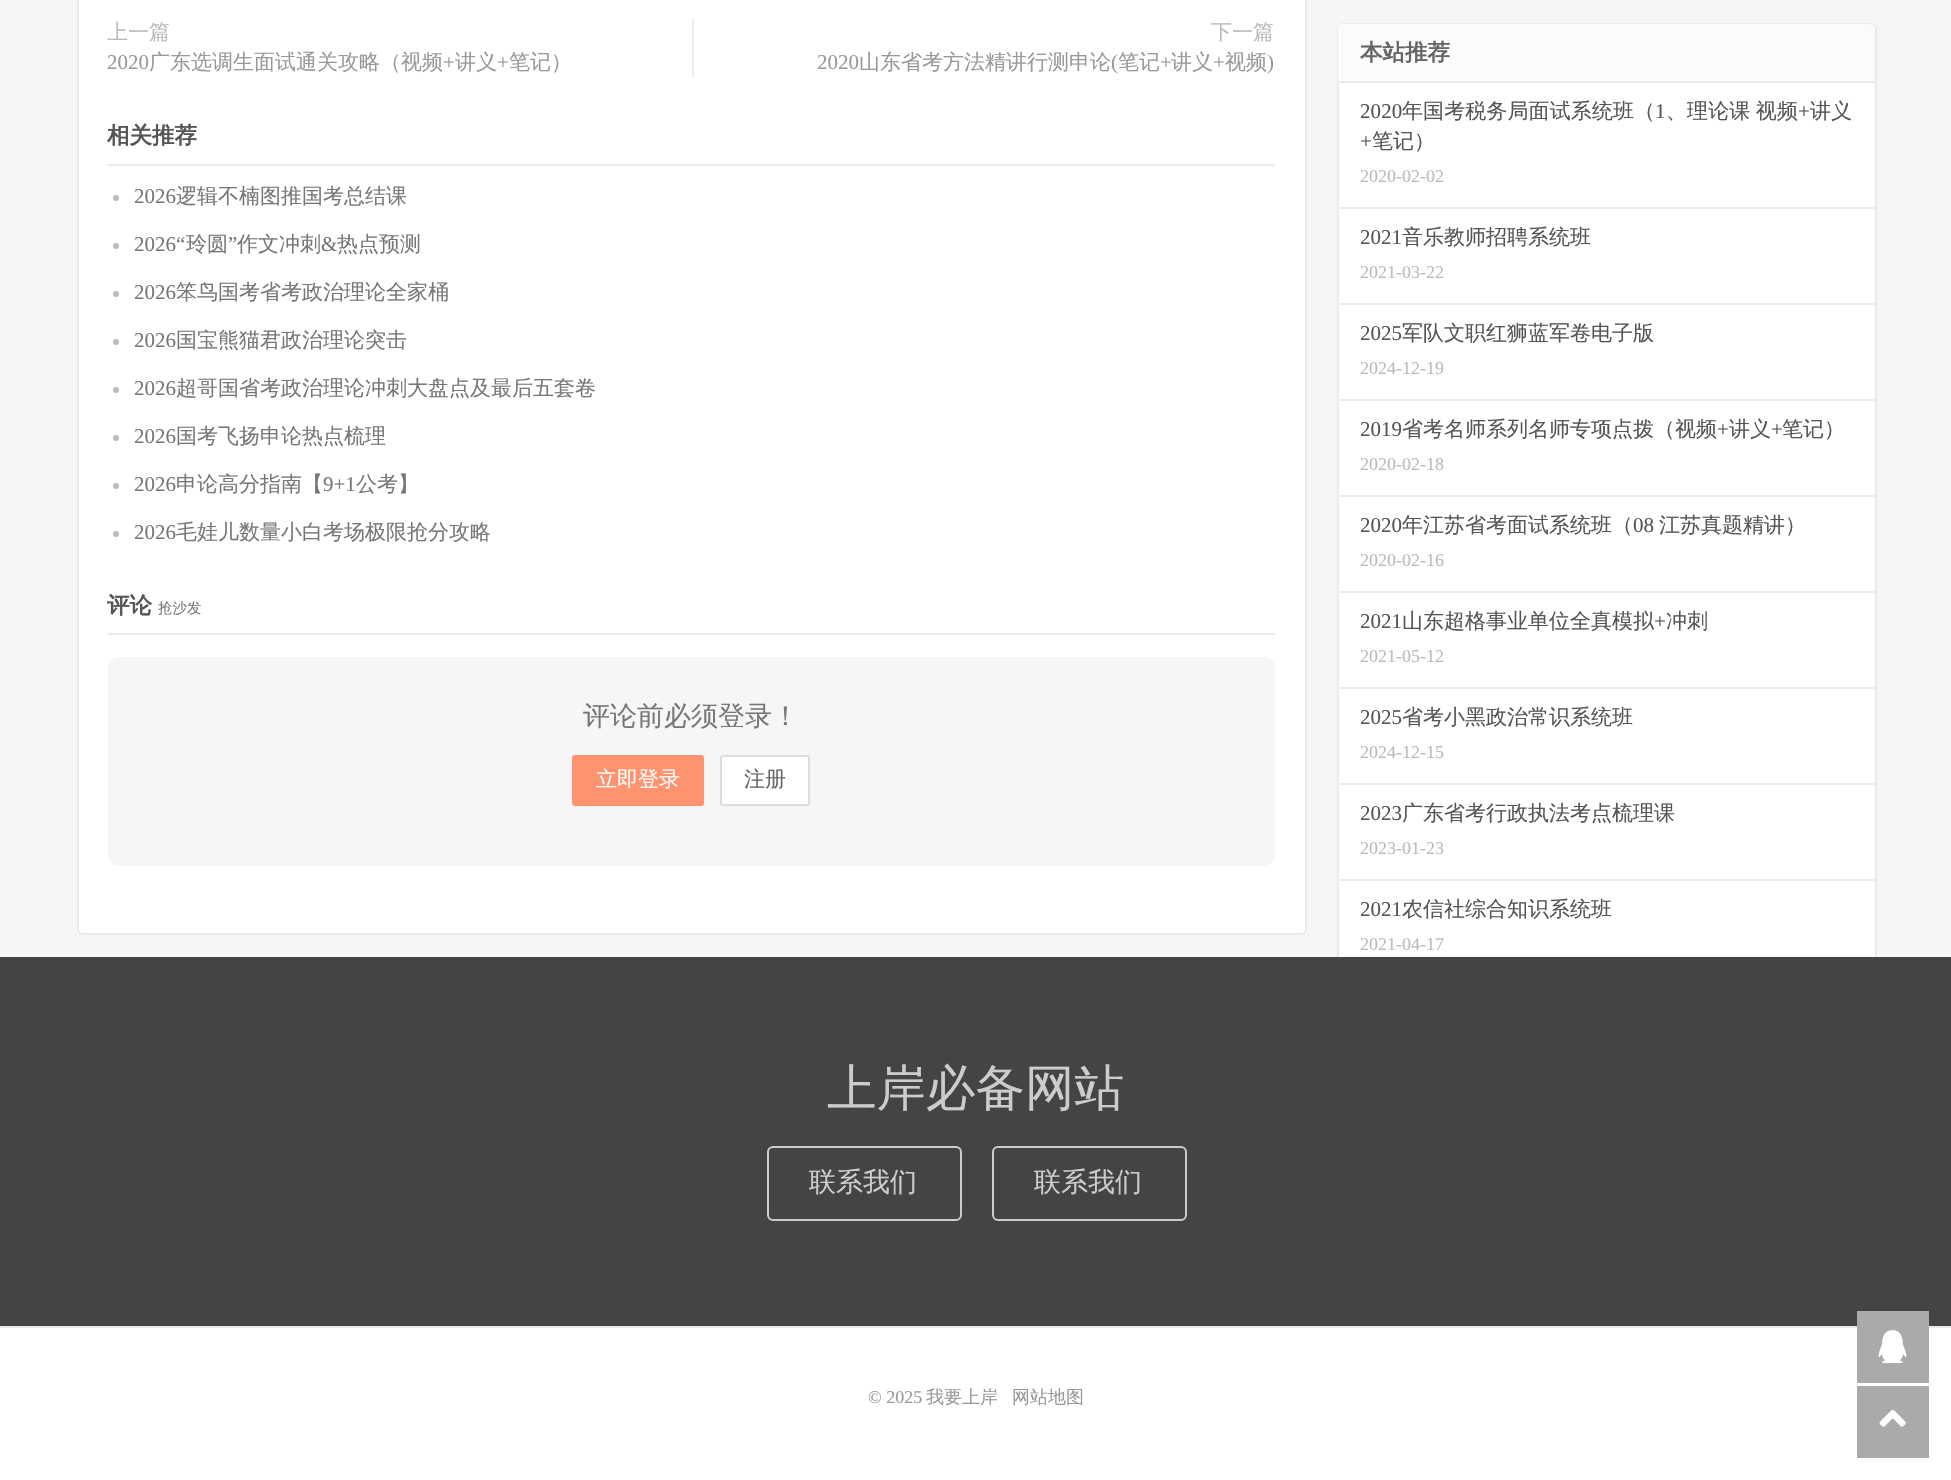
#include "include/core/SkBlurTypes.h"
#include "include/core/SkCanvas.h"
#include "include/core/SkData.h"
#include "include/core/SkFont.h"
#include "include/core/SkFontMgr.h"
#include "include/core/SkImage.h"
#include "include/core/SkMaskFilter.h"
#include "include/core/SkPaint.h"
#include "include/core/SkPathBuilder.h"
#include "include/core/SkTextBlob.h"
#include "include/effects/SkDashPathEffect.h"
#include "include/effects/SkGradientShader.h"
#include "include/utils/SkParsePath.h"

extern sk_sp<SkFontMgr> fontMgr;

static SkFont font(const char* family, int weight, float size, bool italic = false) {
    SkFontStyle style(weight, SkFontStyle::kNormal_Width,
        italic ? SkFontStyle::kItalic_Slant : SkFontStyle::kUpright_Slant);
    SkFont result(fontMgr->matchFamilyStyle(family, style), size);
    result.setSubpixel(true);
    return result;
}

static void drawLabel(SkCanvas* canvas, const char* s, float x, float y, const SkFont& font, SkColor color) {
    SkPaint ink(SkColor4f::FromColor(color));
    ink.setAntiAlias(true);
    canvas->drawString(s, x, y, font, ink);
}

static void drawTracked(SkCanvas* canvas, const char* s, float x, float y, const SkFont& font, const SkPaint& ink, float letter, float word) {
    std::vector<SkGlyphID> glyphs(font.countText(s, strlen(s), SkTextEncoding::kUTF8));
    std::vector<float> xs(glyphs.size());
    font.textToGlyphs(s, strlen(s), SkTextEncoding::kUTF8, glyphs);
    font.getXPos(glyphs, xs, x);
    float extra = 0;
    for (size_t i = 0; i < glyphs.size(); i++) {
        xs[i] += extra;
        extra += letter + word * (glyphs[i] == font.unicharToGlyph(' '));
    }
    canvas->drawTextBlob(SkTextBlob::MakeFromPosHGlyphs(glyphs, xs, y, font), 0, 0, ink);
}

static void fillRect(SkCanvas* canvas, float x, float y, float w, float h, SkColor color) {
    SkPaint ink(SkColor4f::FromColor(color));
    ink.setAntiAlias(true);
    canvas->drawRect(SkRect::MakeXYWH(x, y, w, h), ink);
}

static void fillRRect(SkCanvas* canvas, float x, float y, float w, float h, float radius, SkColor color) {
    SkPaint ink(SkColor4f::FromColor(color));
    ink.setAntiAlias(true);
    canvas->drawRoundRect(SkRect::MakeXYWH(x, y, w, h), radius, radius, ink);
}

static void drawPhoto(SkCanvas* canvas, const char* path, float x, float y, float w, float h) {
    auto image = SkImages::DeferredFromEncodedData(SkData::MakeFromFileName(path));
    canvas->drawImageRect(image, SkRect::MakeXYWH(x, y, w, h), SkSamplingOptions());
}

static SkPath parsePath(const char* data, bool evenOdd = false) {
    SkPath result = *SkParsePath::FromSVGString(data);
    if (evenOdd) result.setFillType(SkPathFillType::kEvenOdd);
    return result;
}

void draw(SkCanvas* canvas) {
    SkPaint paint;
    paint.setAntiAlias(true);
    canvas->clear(0xFFF6F6F6);
    paint.setColor(0xFFFFFFFF);
    canvas->drawRoundRect(SkRect::MakeXYWH(78, -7, 1228, 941), 5, 5, paint);
    paint.setStroke(true);
    paint.setStrokeWidth(2);
    paint.setColor(0xFFEAEAEA);
    canvas->drawRoundRect(SkRect::MakeXYWH(78, -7, 1228, 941), 5, 5, paint);
    SkFont font1 = font("WenQuanYi Zen Hei", 500, 21);
    drawLabel(canvas, "上一篇", 107, 39, font1, 0xFFBBBBBB);
    SkFont font2 = font("Liberation Serif", 400, 21);
    drawLabel(canvas, "2020", 107, 69, font2, 0xFF999999);
    drawLabel(canvas, "广东选调生面试通关攻略（视频", 149, 69, font1, 0xFF999999);
    drawLabel(canvas, "+", 443, 69, font2, 0xFF999999);
    drawLabel(canvas, "讲义", 455, 69, font1, 0xFF999999);
    drawLabel(canvas, "+", 497, 69, font2, 0xFF999999);
    drawLabel(canvas, "笔记）", 509, 69, font1, 0xFF999999);
    fillRect(canvas, 692, 18, 2, 60, 0xFFEEEEEE);
    drawLabel(canvas, "下一篇", 1211, 39, font1, 0xFFBBBBBB);
    drawLabel(canvas, "2020", 817, 69, font2, 0xFF999999);
    drawLabel(canvas, "山东省考方法精讲行测申论", 859, 69, font1, 0xFF999999);
    drawLabel(canvas, "(", 1111, 69, font2, 0xFF999999);
    drawLabel(canvas, "笔记", 1118, 69, font1, 0xFF999999);
    drawLabel(canvas, "+", 1160, 69, font2, 0xFF999999);
    drawLabel(canvas, "讲义", 1171, 69, font1, 0xFF999999);
    drawLabel(canvas, "+", 1213, 69, font2, 0xFF999999);
    drawLabel(canvas, "视频", 1225, 69, font1, 0xFF999999);
    drawLabel(canvas, ")", 1267, 69, font2, 0xFF999999);
    fillRect(canvas, 108, 164, 1167, 2, 0xFFEAEAEA);
    SkFont font3 = font("WenQuanYi Zen Hei", 700, 22.5f);
    drawLabel(canvas, "相关推荐", 107, 143, font3, 0xFF555555);
    paint.setStroke(false);
    paint.setColor(0xFFBBBBBB);
    canvas->drawCircle(116, 198, 3, paint);
    drawLabel(canvas, "2026", 134, 203, font2, 0xFF777777);
    drawLabel(canvas, "逻辑不楠图推国考总结课", 176, 203, font1, 0xFF777777);
    canvas->drawCircle(116, 246, 3, paint);
    drawLabel(canvas, "2026“", 134, 251, font2, 0xFF777777);
    drawLabel(canvas, "玲圆", 186, 251, font1, 0xFF777777);
    drawLabel(canvas, "”", 228, 251, font2, 0xFF777777);
    drawLabel(canvas, "作文冲刺", 237, 251, font1, 0xFF777777);
    drawLabel(canvas, "&", 321, 251, font2, 0xFF777777);
    drawLabel(canvas, "热点预测", 337, 251, font1, 0xFF777777);
    canvas->drawCircle(116, 294, 3, paint);
    drawLabel(canvas, "2026", 134, 299, font2, 0xFF777777);
    drawLabel(canvas, "笨鸟国考省考政治理论全家桶", 176, 299, font1, 0xFF777777);
    canvas->drawCircle(116, 342, 3, paint);
    drawLabel(canvas, "2026", 134, 347, font2, 0xFF777777);
    drawLabel(canvas, "国宝熊猫君政治理论突击", 176, 347, font1, 0xFF777777);
    canvas->drawCircle(116, 390, 3, paint);
    drawLabel(canvas, "2026", 134, 395, font2, 0xFF777777);
    drawLabel(canvas, "超哥国省考政治理论冲刺大盘点及最后五套卷", 176, 395, font1, 0xFF777777);
    canvas->drawCircle(116, 438, 3, paint);
    drawLabel(canvas, "2026", 134, 443, font2, 0xFF777777);
    drawLabel(canvas, "国考飞扬申论热点梳理", 176, 443, font1, 0xFF777777);
    canvas->drawCircle(116, 486, 3, paint);
    drawLabel(canvas, "2026", 134, 491, font2, 0xFF777777);
    drawLabel(canvas, "申论高分指南【", 176, 491, font1, 0xFF777777);
    drawLabel(canvas, "9+1", 323, 491, font2, 0xFF777777);
    drawLabel(canvas, "公考】", 356, 491, font1, 0xFF777777);
    canvas->drawCircle(116, 534, 3, paint);
    drawLabel(canvas, "2026", 134, 539, font2, 0xFF777777);
    drawLabel(canvas, "毛娃儿数量小白考场极限抢分攻略", 176, 539, font1, 0xFF777777);
    fillRect(canvas, 108, 633, 1167, 2, 0xFFEAEAEA);
    drawLabel(canvas, "评论", 107, 613, font3, 0xFF555555);
    SkFont font4 = font("WenQuanYi Zen Hei", 500, 14.5f);
    drawLabel(canvas, "抢沙发", 158, 613, font4, 0xFF777777);
    fillRRect(canvas, 108, 657, 1167, 209, 11, 0xFFF6F6F6);
    SkFont font5 = font("WenQuanYi Zen Hei", 500, 27);
    drawLabel(canvas, "评论前必须登录！", 583, 725, font5, 0xFF777777);
    paint.setColor(0xFFFF926F);
    canvas->drawRoundRect(SkRect::MakeXYWH(573, 756, 130, 49), 2, 2, paint);
    paint.setStroke(true);
    canvas->drawRoundRect(SkRect::MakeXYWH(573, 756, 130, 49), 2, 2, paint);
    drawLabel(canvas, "立即登录", 596, 786, font1, 0xFFFFFFFF);
    paint.setStroke(false);
    paint.setColor(0xFFFFFFFF);
    canvas->drawRoundRect(SkRect::MakeXYWH(721, 756, 88, 49), 2, 2, paint);
    paint.setStroke(true);
    paint.setColor(0xFFDDDDDD);
    canvas->drawRoundRect(SkRect::MakeXYWH(721, 756, 88, 49), 2, 2, paint);
    drawLabel(canvas, "注册", 744, 786, font1, 0xFF666666);
    paint.setStroke(false);
    paint.setColor(0xFFFFFFFF);
    canvas->drawRoundRect(SkRect::MakeXYWH(1338, 24, 538, 1048), 5, 5, paint);
    paint.setStroke(true);
    paint.setColor(0xFFEAEAEA);
    canvas->drawRoundRect(SkRect::MakeXYWH(1338, 24, 538, 1048), 5, 5, paint);
    paint.setStroke(false);
    paint.setColor(0xFFFBFBFB);
    canvas->drawPath(parsePath("M1343 24H1870C1873 24 1875 26 1875 29V83H1338V29C1338 26 1340 24 1343 24Z"), paint);
    fillRect(canvas, 1338, 81, 537, 2, 0xFFEAEAEA);
    drawLabel(canvas, "本站推荐", 1360, 60, font3, 0xFF666666);
    fillRect(canvas, 1338, 207, 537, 2, 0xFFEEEEEE);
    paint.setColor(0xFF555555);
    drawTracked(canvas, "2020", 1360, 118, font2, paint, 0.1f, 0);
    drawTracked(canvas, "年国考税务局面试系统班（", 1402, 118, font1, paint, 0.1f, 0);
    drawTracked(canvas, "1", 1655, 118, font2, paint, 0.1f, 0);
    drawTracked(canvas, "、理论课 视频", 1666, 118, font1, paint, 0.1f, -1);
    drawTracked(canvas, "+", 1798, 118, font2, paint, 0.1f, 0);
    drawTracked(canvas, "讲义", 1810, 118, font1, paint, 0.1f, 0);
    drawLabel(canvas, "+", 1360, 148, font2, 0xFF555555);
    drawLabel(canvas, "笔记）", 1372, 148, font1, 0xFF555555);
    SkFont font6 = font("Liberation Serif", 400, 18);
    drawLabel(canvas, "2020-02-02", 1360, 182, font6, 0xFFBBBBBB);
    fillRect(canvas, 1338, 303, 537, 2, 0xFFEEEEEE);
    drawLabel(canvas, "2021", 1360, 244, font2, 0xFF555555);
    drawLabel(canvas, "音乐教师招聘系统班", 1402, 244, font1, 0xFF555555);
    drawLabel(canvas, "2021-03-22", 1360, 278, font6, 0xFFBBBBBB);
    fillRect(canvas, 1338, 399, 537, 2, 0xFFEEEEEE);
    drawLabel(canvas, "2025", 1360, 340, font2, 0xFF555555);
    drawLabel(canvas, "军队文职红狮蓝军卷电子版", 1402, 340, font1, 0xFF555555);
    drawLabel(canvas, "2024-12-19", 1360, 374, font6, 0xFFBBBBBB);
    fillRect(canvas, 1338, 495, 537, 2, 0xFFEEEEEE);
    drawLabel(canvas, "2019", 1360, 436, font2, 0xFF555555);
    drawLabel(canvas, "省考名师系列名师专项点拨（视频", 1402, 436, font1, 0xFF555555);
    drawLabel(canvas, "+", 1717, 436, font2, 0xFF555555);
    drawLabel(canvas, "讲义", 1729, 436, font1, 0xFF555555);
    drawLabel(canvas, "+", 1771, 436, font2, 0xFF555555);
    drawLabel(canvas, "笔记）", 1782, 436, font1, 0xFF555555);
    drawLabel(canvas, "2020-02-18", 1360, 470, font6, 0xFFBBBBBB);
    fillRect(canvas, 1338, 591, 537, 2, 0xFFEEEEEE);
    drawLabel(canvas, "2020", 1360, 532, font2, 0xFF555555);
    drawLabel(canvas, "年江苏省考面试系统班（", 1402, 532, font1, 0xFF555555);
    drawLabel(canvas, "08", 1633, 532, font2, 0xFF555555);
    drawLabel(canvas, "江苏真题精讲）", 1659, 532, font1, 0xFF555555);
    drawLabel(canvas, "2020-02-16", 1360, 566, font6, 0xFFBBBBBB);
    fillRect(canvas, 1338, 687, 537, 2, 0xFFEEEEEE);
    drawLabel(canvas, "2021", 1360, 628, font2, 0xFF555555);
    drawLabel(canvas, "山东超格事业单位全真模拟", 1402, 628, font1, 0xFF555555);
    drawLabel(canvas, "+", 1654, 628, font2, 0xFF555555);
    drawLabel(canvas, "冲刺", 1666, 628, font1, 0xFF555555);
    drawLabel(canvas, "2021-05-12", 1360, 662, font6, 0xFFBBBBBB);
    fillRect(canvas, 1338, 783, 537, 2, 0xFFEEEEEE);
    drawLabel(canvas, "2025", 1360, 724, font2, 0xFF555555);
    drawLabel(canvas, "省考小黑政治常识系统班", 1402, 724, font1, 0xFF555555);
    drawLabel(canvas, "2024-12-15", 1360, 758, font6, 0xFFBBBBBB);
    fillRect(canvas, 1338, 879, 537, 2, 0xFFEEEEEE);
    drawLabel(canvas, "2023", 1360, 820, font2, 0xFF555555);
    drawLabel(canvas, "广东省考行政执法考点梳理课", 1402, 820, font1, 0xFF555555);
    drawLabel(canvas, "2023-01-23", 1360, 854, font6, 0xFFBBBBBB);
    drawLabel(canvas, "2021", 1360, 916, font2, 0xFF555555);
    drawLabel(canvas, "农信社综合知识系统班", 1402, 916, font1, 0xFF555555);
    drawLabel(canvas, "2021-04-17", 1360, 950, font6, 0xFFBBBBBB);
    fillRect(canvas, 0, 957, 1951, 369, 0xFF444444);
    SkFont font7 = font("WenQuanYi Zen Hei", 500, 49.5f);
    drawLabel(canvas, "上岸必备网站", 827, 1105, font7, 0xFFCCCCCC);
    paint.setStroke(true);
    paint.setColor(0xFFCCCCCC);
    canvas->drawRoundRect(SkRect::MakeXYWH(768, 1147, 193, 73), 5, 5, paint);
    drawLabel(canvas, "联系我们", 809, 1191, font5, 0xFFCCCCCC);
    canvas->drawRoundRect(SkRect::MakeXYWH(993, 1147, 193, 73), 5, 5, paint);
    drawLabel(canvas, "联系我们", 1034, 1191, font5, 0xFFCCCCCC);
    fillRect(canvas, 0, 1328, 1951, 152, 0xFFFFFFFF);
    fillRect(canvas, 0, 1326, 1951, 2, 0xFFEAEAEA);
    drawLabel(canvas, "© 2025", 868, 1403, font6, 0xFF999999);
    SkFont font8 = font("WenQuanYi Zen Hei", 500, 18);
    drawLabel(canvas, "我要上岸", 926, 1403, font8, 0xFF999999);
    drawLabel(canvas, "网站地图", 1012, 1403, font8, 0xFF999999);
    fillRect(canvas, 1857, 1311, 72, 72, 0xFFAAAAAA);
    drawPhoto(canvas, "assets/img1.png", 1878, 1330, 29, 34);
    fillRect(canvas, 1857, 1386, 72, 72, 0xFFAAAAAA);
    drawPhoto(canvas, "assets/img2.png", 1879, 1409, 27, 18);
}
